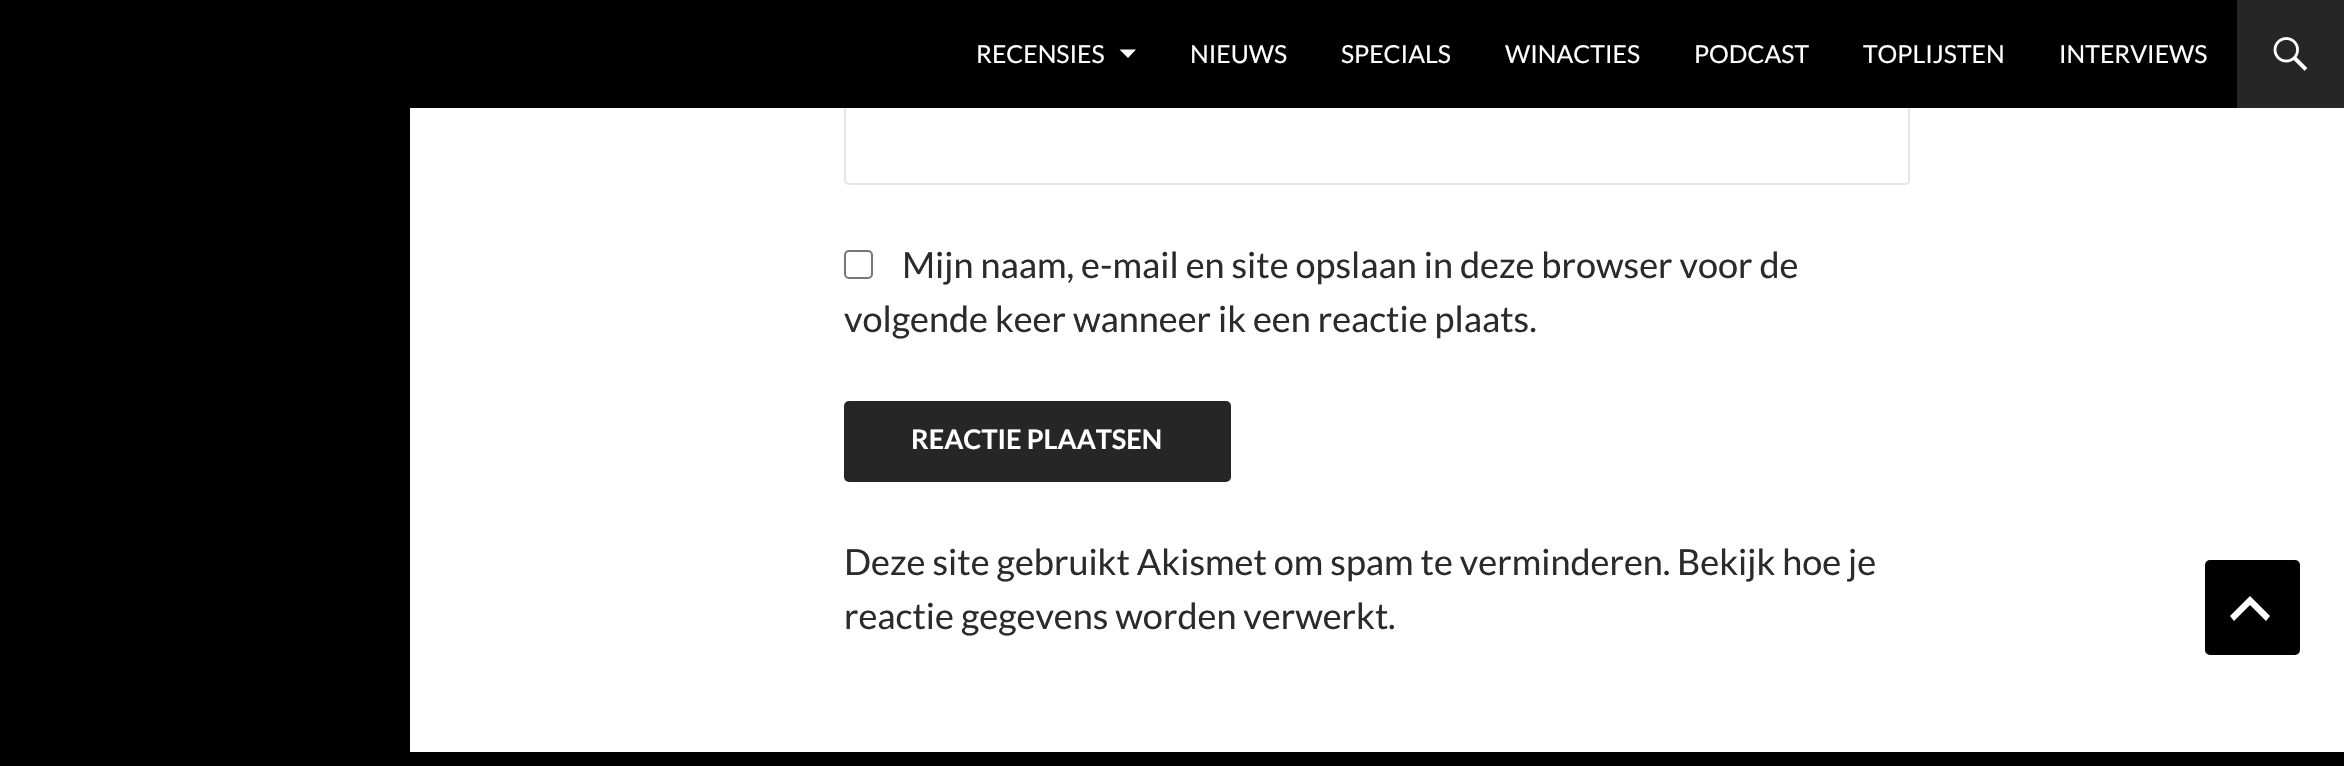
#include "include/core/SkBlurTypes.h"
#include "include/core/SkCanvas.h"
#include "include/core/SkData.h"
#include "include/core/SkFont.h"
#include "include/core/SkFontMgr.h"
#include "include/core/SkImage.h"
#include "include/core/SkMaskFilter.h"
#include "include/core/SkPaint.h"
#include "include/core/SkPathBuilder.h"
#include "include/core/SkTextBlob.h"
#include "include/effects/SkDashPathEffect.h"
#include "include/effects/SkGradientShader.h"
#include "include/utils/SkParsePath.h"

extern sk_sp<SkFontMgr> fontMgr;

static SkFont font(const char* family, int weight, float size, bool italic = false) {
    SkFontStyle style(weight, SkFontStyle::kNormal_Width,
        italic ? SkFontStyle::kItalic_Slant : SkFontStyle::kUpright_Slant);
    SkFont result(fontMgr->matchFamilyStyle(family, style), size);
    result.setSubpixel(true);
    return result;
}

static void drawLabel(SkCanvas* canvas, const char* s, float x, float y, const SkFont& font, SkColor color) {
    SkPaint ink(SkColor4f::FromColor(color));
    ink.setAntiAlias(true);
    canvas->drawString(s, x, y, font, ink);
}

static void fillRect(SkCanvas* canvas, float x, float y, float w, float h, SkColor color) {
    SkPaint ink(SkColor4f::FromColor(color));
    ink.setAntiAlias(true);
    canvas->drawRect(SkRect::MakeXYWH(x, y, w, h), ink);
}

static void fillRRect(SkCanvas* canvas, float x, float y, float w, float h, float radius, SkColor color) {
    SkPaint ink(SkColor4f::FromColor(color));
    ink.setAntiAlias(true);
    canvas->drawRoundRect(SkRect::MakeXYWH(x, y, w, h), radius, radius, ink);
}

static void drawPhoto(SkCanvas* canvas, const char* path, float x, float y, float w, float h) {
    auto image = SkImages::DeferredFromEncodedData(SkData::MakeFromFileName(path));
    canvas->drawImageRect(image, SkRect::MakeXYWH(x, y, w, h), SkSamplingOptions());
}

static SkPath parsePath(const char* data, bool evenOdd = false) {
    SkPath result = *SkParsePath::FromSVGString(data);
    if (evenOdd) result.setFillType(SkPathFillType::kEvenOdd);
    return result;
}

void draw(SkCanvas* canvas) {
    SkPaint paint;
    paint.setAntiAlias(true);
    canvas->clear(0xFFFFFFFF);
    paint.setStroke(true);
    paint.setStrokeWidth(2);
    paint.setColor(0xFFE6E6E6);
    canvas->drawRoundRect(SkRect::MakeXYWH(845, 105, 1064, 79), 4, 4, paint);
    fillRect(canvas, 0, 0, 2237, 108, 0xFF000000);
    SkFont font1 = font("Lato", 400, 24.75f);
    drawLabel(canvas, "RECENSIES", 976, 63, font1, 0xFFFFFFFF);
    paint.setStroke(false);
    paint.setColor(0xFFFFFFFF);
    canvas->drawPath(parsePath("M1119.5 49.5H1136L1128 58Z"), paint);
    drawLabel(canvas, "NIEUWS", 1190, 63, font1, 0xFFFFFFFF);
    drawLabel(canvas, "SPECIALS", 1341, 63, font1, 0xFFFFFFFF);
    drawLabel(canvas, "WINACTIES", 1505, 63, font1, 0xFFFFFFFF);
    drawLabel(canvas, "PODCAST", 1694, 63, font1, 0xFFFFFFFF);
    drawLabel(canvas, "TOPLIJSTEN", 1863, 63, font1, 0xFFFFFFFF);
    drawLabel(canvas, "INTERVIEWS", 2059, 63, font1, 0xFFFFFFFF);
    fillRect(canvas, 2237, 0, 107, 108, 0xFF262626);
    drawPhoto(canvas, "assets/img1.png", 2273, 37, 35, 34);
    fillRect(canvas, 0, 108, 410, 644, 0xFF000000);
    paint.setStroke(true);
    paint.setColor(0xFF767676);
    canvas->drawRoundRect(SkRect::MakeXYWH(845, 251, 27, 27), 4, 4, paint);
    SkFont font2 = font("Lato", 400, 36);
    drawLabel(canvas, "Mijn naam, e-mail en site opslaan in deze browser voor de", 902, 278, font2, 0xFF2B2B2B);
    drawLabel(canvas, "volgende keer wanneer ik een reactie plaats.", 844, 332, font2, 0xFF2B2B2B);
    fillRRect(canvas, 844, 401, 387, 81, 5, 0xFF262626);
    SkFont font3 = font("Lato", 700, 27);
    drawLabel(canvas, "REACTIE PLAATSEN", 911, 449, font3, 0xFFFFFFFF);
    drawLabel(canvas, "Deze site gebruikt Akismet om spam te verminderen.", 844, 575, font2, 0xFF2B2B2B);
    drawLabel(canvas, "Bekijk hoe je", 1677, 575, font2, 0xFF2B2B2B);
    drawLabel(canvas, "reactie gegevens worden verwerkt", 844, 629, font2, 0xFF2B2B2B);
    drawLabel(canvas, ".", 1388, 629, font2, 0xFF2B2B2B);
    fillRect(canvas, 0, 752, 2344, 14, 0xFF000000);
    fillRRect(canvas, 2205, 560, 95, 95, 5, 0xFF000000);
    paint.setStroke(false);
    paint.setColor(0xFFFFFFFF);
    canvas->drawPath(parsePath("M2266 621L2250 605L2234 621L2230 616L2250 596L2270 616Z"), paint);
}
